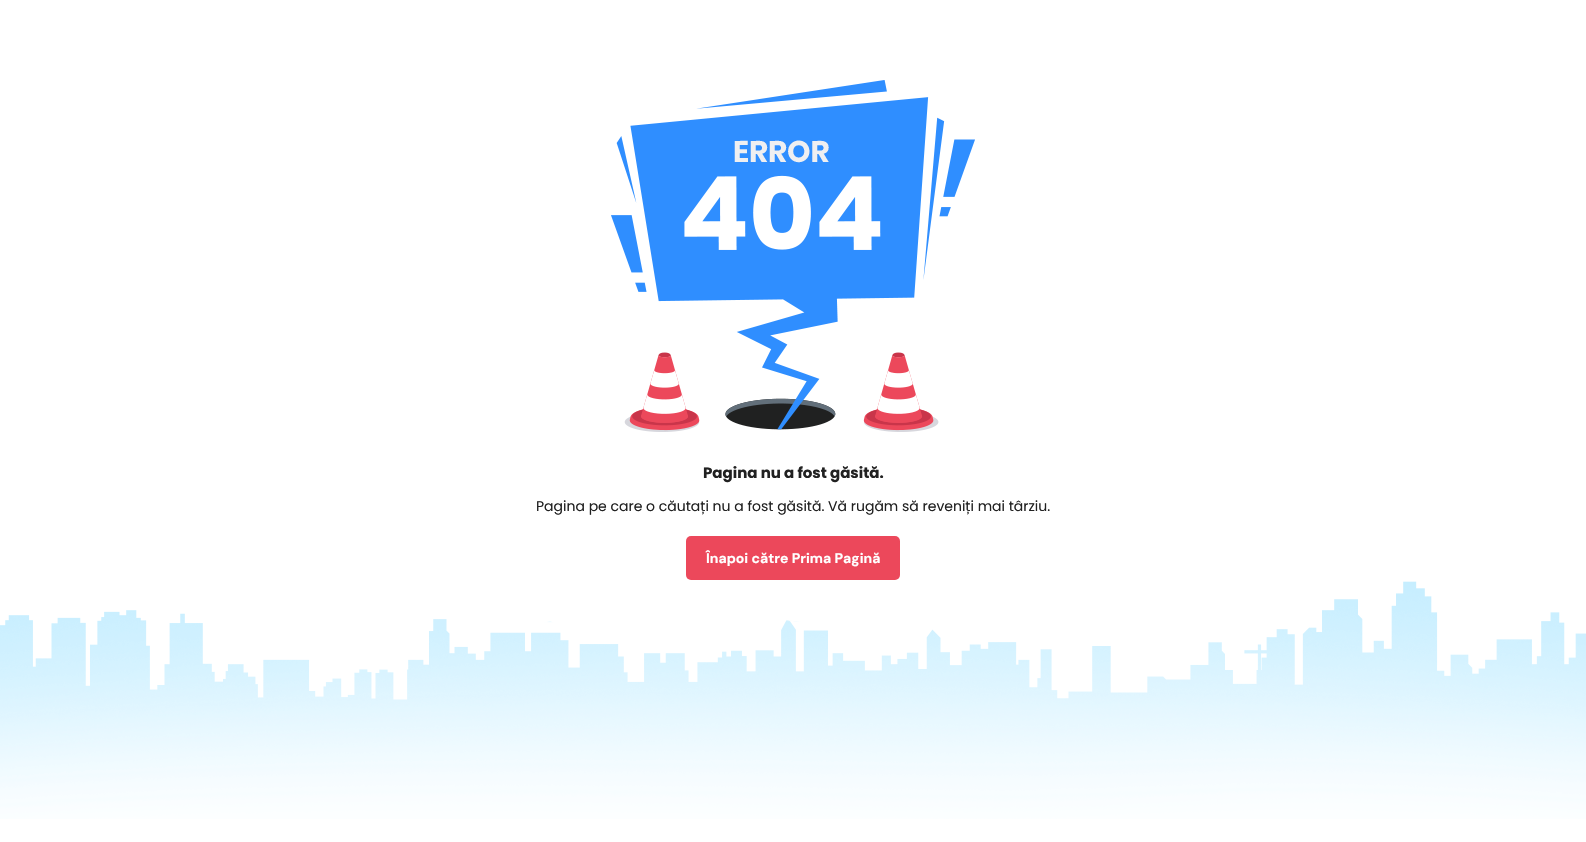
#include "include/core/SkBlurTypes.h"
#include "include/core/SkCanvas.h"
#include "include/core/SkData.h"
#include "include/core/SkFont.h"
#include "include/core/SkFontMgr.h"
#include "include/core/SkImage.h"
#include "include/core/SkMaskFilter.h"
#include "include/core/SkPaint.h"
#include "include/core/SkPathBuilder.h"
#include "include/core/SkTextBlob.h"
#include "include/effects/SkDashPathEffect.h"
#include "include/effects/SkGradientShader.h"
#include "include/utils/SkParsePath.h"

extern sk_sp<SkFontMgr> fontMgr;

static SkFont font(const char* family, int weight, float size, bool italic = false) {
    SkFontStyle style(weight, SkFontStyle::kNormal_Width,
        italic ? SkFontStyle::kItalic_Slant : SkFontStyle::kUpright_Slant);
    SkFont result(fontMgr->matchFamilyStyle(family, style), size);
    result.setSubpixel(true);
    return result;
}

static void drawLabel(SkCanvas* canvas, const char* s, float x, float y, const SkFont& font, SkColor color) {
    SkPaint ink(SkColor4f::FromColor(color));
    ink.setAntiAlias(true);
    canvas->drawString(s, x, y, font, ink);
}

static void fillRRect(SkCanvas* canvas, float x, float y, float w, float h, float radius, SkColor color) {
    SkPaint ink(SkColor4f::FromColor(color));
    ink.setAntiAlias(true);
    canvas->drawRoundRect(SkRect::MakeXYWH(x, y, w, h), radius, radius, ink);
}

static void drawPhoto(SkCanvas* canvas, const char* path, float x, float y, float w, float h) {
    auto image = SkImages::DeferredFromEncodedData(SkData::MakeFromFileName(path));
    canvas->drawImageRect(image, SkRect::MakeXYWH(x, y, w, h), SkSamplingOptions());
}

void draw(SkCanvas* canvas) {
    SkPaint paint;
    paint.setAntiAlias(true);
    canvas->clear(0xFFFFFFFF);
    drawPhoto(canvas, "assets/img1.png", 0, 581, 1586, 238);
    drawPhoto(canvas, "assets/img2.png", 611, 80, 364, 352);
    SkFont font1 = font("Poppins", 700, 15);
    drawLabel(canvas, "Pagina nu a fost găsită.", 703, 478, font1, 0xFF212121);
    SkFont font2 = font("Poppins", 400, 14);
    drawLabel(canvas, "Pagina pe care o căutați nu a fost găsită. Vă rugăm să reveniți mai târziu.", 536, 511, font2, 0xFF212121);
    fillRRect(canvas, 686, 536, 214, 44, 5, 0xFFEC485B);
    SkFont font3 = font("DM Sans", 700, 14);
    drawLabel(canvas, "Înapoi către Prima Pagină", 706, 563, font3, 0xFFFFFFFF);
}
